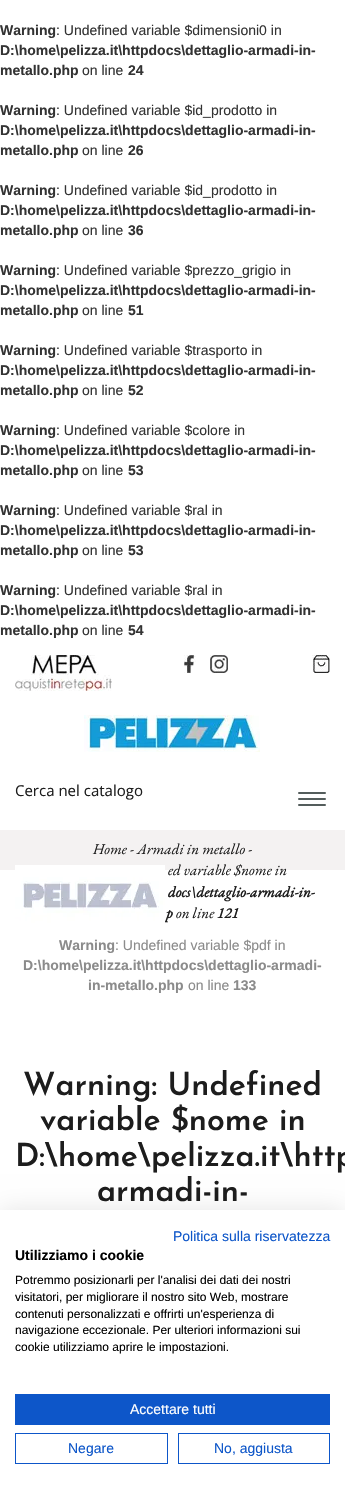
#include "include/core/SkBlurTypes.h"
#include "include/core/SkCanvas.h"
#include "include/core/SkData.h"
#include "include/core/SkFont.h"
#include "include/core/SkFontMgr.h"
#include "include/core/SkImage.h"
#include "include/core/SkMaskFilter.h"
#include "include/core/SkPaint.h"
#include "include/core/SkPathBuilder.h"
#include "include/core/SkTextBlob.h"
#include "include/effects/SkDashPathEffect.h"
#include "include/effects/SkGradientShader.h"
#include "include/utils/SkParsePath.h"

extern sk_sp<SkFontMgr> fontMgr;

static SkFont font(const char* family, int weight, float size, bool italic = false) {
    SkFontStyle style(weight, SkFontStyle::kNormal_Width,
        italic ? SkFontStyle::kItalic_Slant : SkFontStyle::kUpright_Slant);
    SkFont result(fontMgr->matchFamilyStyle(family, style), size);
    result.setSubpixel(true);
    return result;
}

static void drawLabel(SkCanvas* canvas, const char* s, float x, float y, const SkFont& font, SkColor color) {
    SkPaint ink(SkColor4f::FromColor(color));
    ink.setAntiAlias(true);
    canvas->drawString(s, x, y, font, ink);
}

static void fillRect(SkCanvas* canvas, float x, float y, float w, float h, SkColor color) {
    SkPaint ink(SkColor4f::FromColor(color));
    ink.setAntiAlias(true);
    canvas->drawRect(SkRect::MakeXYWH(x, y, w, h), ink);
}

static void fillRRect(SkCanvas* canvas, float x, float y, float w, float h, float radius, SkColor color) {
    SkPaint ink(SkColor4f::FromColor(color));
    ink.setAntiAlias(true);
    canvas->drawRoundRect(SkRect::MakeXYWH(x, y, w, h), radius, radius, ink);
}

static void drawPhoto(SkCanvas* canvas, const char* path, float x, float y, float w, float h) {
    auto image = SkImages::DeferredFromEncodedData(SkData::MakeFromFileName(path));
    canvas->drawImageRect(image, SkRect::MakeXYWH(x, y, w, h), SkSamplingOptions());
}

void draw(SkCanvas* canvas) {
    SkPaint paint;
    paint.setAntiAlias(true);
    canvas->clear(0xFFFFFFFF);
    SkFont font1 = font("Liberation Sans", 700, 14);
    drawLabel(canvas, "Warning", 0, 35, font1, 0xFF333333);
    SkFont font2 = font("Liberation Sans", 400, 14);
    drawLabel(canvas, ": Undefined variable $dimensioni0 in", 56, 35, font2, 0xFF333333);
    drawLabel(canvas, "D:\\home\\pelizza.it\\httpdocs\\dettaglio-armadi-in-", 0, 55, font1, 0xFF333333);
    drawLabel(canvas, "metallo.php", 0, 75, font1, 0xFF333333);
    drawLabel(canvas, "on line", 82, 75, font2, 0xFF333333);
    drawLabel(canvas, "24", 128, 75, font1, 0xFF333333);
    drawLabel(canvas, "Warning", 0, 115, font1, 0xFF333333);
    drawLabel(canvas, ": Undefined variable $id_prodotto in", 56, 115, font2, 0xFF333333);
    drawLabel(canvas, "D:\\home\\pelizza.it\\httpdocs\\dettaglio-armadi-in-", 0, 135, font1, 0xFF333333);
    drawLabel(canvas, "metallo.php", 0, 155, font1, 0xFF333333);
    drawLabel(canvas, "on line", 82, 155, font2, 0xFF333333);
    drawLabel(canvas, "26", 128, 155, font1, 0xFF333333);
    drawLabel(canvas, "Warning", 0, 195, font1, 0xFF333333);
    drawLabel(canvas, ": Undefined variable $id_prodotto in", 56, 195, font2, 0xFF333333);
    drawLabel(canvas, "D:\\home\\pelizza.it\\httpdocs\\dettaglio-armadi-in-", 0, 215, font1, 0xFF333333);
    drawLabel(canvas, "metallo.php", 0, 235, font1, 0xFF333333);
    drawLabel(canvas, "on line", 82, 235, font2, 0xFF333333);
    drawLabel(canvas, "36", 128, 235, font1, 0xFF333333);
    drawLabel(canvas, "Warning", 0, 275, font1, 0xFF333333);
    drawLabel(canvas, ": Undefined variable $prezzo_grigio in", 56, 275, font2, 0xFF333333);
    drawLabel(canvas, "D:\\home\\pelizza.it\\httpdocs\\dettaglio-armadi-in-", 0, 295, font1, 0xFF333333);
    drawLabel(canvas, "metallo.php", 0, 315, font1, 0xFF333333);
    drawLabel(canvas, "on line", 82, 315, font2, 0xFF333333);
    drawLabel(canvas, "51", 128, 315, font1, 0xFF333333);
    drawLabel(canvas, "Warning", 0, 355, font1, 0xFF333333);
    drawLabel(canvas, ": Undefined variable $trasporto in", 56, 355, font2, 0xFF333333);
    drawLabel(canvas, "D:\\home\\pelizza.it\\httpdocs\\dettaglio-armadi-in-", 0, 375, font1, 0xFF333333);
    drawLabel(canvas, "metallo.php", 0, 395, font1, 0xFF333333);
    drawLabel(canvas, "on line", 82, 395, font2, 0xFF333333);
    drawLabel(canvas, "52", 128, 395, font1, 0xFF333333);
    drawLabel(canvas, "Warning", 0, 435, font1, 0xFF333333);
    drawLabel(canvas, ": Undefined variable $colore in", 56, 435, font2, 0xFF333333);
    drawLabel(canvas, "D:\\home\\pelizza.it\\httpdocs\\dettaglio-armadi-in-", 0, 455, font1, 0xFF333333);
    drawLabel(canvas, "metallo.php", 0, 475, font1, 0xFF333333);
    drawLabel(canvas, "on line", 82, 475, font2, 0xFF333333);
    drawLabel(canvas, "53", 128, 475, font1, 0xFF333333);
    drawLabel(canvas, "Warning", 0, 515, font1, 0xFF333333);
    drawLabel(canvas, ": Undefined variable $ral in", 56, 515, font2, 0xFF333333);
    drawLabel(canvas, "D:\\home\\pelizza.it\\httpdocs\\dettaglio-armadi-in-", 0, 535, font1, 0xFF333333);
    drawLabel(canvas, "metallo.php", 0, 555, font1, 0xFF333333);
    drawLabel(canvas, "on line", 82, 555, font2, 0xFF333333);
    drawLabel(canvas, "53", 128, 555, font1, 0xFF333333);
    drawLabel(canvas, "Warning", 0, 595, font1, 0xFF333333);
    drawLabel(canvas, ": Undefined variable $ral in", 56, 595, font2, 0xFF333333);
    drawLabel(canvas, "D:\\home\\pelizza.it\\httpdocs\\dettaglio-armadi-in-", 0, 615, font1, 0xFF333333);
    drawLabel(canvas, "metallo.php", 0, 635, font1, 0xFF333333);
    drawLabel(canvas, "on line", 82, 635, font2, 0xFF333333);
    drawLabel(canvas, "54", 128, 635, font1, 0xFF333333);
    drawPhoto(canvas, "assets/img1.png", 15, 655, 97, 36);
    drawPhoto(canvas, "assets/img2.png", 184, 655, 12, 18);
    drawPhoto(canvas, "assets/img3.png", 210, 655, 18, 18);
    drawPhoto(canvas, "assets/img4.png", 312, 655, 18, 18);
    drawPhoto(canvas, "assets/img5.png", 84, 715, 176, 37);
    SkFont font3 = font("Open Sans", 400, 15);
    drawLabel(canvas, "Cerca nel catalogo", 15, 796, font3, 0xFF1D1D1D);
    fillRRect(canvas, 298, 792, 28, 2, 1, 0xFF545D5C);
    fillRRect(canvas, 298, 798, 28, 2, 1, 0xFF545D5C);
    fillRRect(canvas, 298, 804, 28, 2, 1, 0xFF545D5C);
    fillRect(canvas, 0, 830, 345, 40, 0xFFF4F2F2);
    SkFont font4 = font("EB Garamond", 400, 15, true);
    drawLabel(canvas, "Home - Armadi in metallo -", 93, 854, font4, 0xFF1D1D1D);
    drawLabel(canvas, "ed variable $nome in", 168, 875, font4, 0xFF1D1D1D);
    SkFont font5 = font("EB Garamond", 700, 15, true);
    drawLabel(canvas, "docs\\dettaglio-armadi-in-", 168, 897, font5, 0xFF1D1D1D);
    drawLabel(canvas, "p", 166, 918, font5, 0xFF1D1D1D);
    drawLabel(canvas, "on line", 176, 918, font4, 0xFF1D1D1D);
    drawLabel(canvas, "121", 217, 918, font5, 0xFF1D1D1D);
    drawPhoto(canvas, "assets/img6.png", 15, 865, 150, 58);
    drawLabel(canvas, "Warning", 59, 950, font1, 0xFF8B8B8B);
    drawLabel(canvas, ": Undefined variable $pdf in", 115, 950, font2, 0xFF8B8B8B);
    drawLabel(canvas, "D:\\home\\pelizza.it\\httpdocs\\dettaglio-armadi-", 23, 970, font1, 0xFF8B8B8B);
    drawLabel(canvas, "in-metallo.php", 88, 990, font1, 0xFF8B8B8B);
    drawLabel(canvas, "on line", 188, 990, font2, 0xFF8B8B8B);
    drawLabel(canvas, "133", 233, 990, font1, 0xFF8B8B8B);
    SkFont font6 = font("Josefin Sans", 100, 32);
    drawLabel(canvas, "Warning: Undefined", 23, 1095, font6, 0xFF1D1D1D);
    drawLabel(canvas, "variable $nome in", 40, 1130, font6, 0xFF1D1D1D);
    drawLabel(canvas, "D:\\home\\pelizza.it\\http", 15, 1166, font6, 0xFF1D1D1D);
    drawLabel(canvas, "armadi-in-", 97, 1201, font6, 0xFF1D1D1D);
    paint.setColor(0x1A000000);
    paint.setMaskFilter(SkMaskFilter::MakeBlur(kNormal_SkBlurStyle, 12));
    canvas->drawRect(SkRect::MakeXYWH(0, 1210, 345, 281), paint);
    paint.setMaskFilter(nullptr);
    fillRect(canvas, 0, 1210, 345, 281, 0xFFFFFFFF);
    drawLabel(canvas, "Politica sulla riservatezza", 173, 1241, font2, 0xFF0D56C9);
    drawLabel(canvas, "Utilizziamo i cookie", 15, 1260, font1, 0xFF000000);
    SkFont font7 = font("Liberation Sans", 400, 12);
    drawLabel(canvas, "Potremmo posizionarli per l'analisi dei dati dei nostri", 15, 1284, font7, 0xFF000000);
    drawLabel(canvas, "visitatori, per migliorare il nostro sito Web, mostrare", 15, 1301, font7, 0xFF000000);
    drawLabel(canvas, "contenuti personalizzati e offrirti un'esperienza di", 15, 1318, font7, 0xFF000000);
    drawLabel(canvas, "navigazione eccezionale. Per ulteriori informazioni sui", 15, 1334, font7, 0xFF000000);
    drawLabel(canvas, "cookie utilizziamo aprire le impostazioni.", 15, 1351, font7, 0xFF000000);
    fillRect(canvas, 15, 1394, 315, 31, 0xFF0D56C9);
    drawLabel(canvas, "Accettare tutti", 130, 1414, font2, 0xFFFFFFFF);
    paint.setStroke(true);
    paint.setStrokeWidth(1);
    paint.setColor(0xFF0D56C9);
    canvas->drawRect(SkRect::MakeXYWH(15.5f, 1433.5f, 152, 30), paint);
    drawLabel(canvas, "Negare", 68, 1453, font2, 0xFF0D56C9);
    canvas->drawRect(SkRect::MakeXYWH(178.5f, 1433.5f, 151, 30), paint);
    drawLabel(canvas, "No, aggiusta", 214, 1453, font2, 0xFF0D56C9);
}
